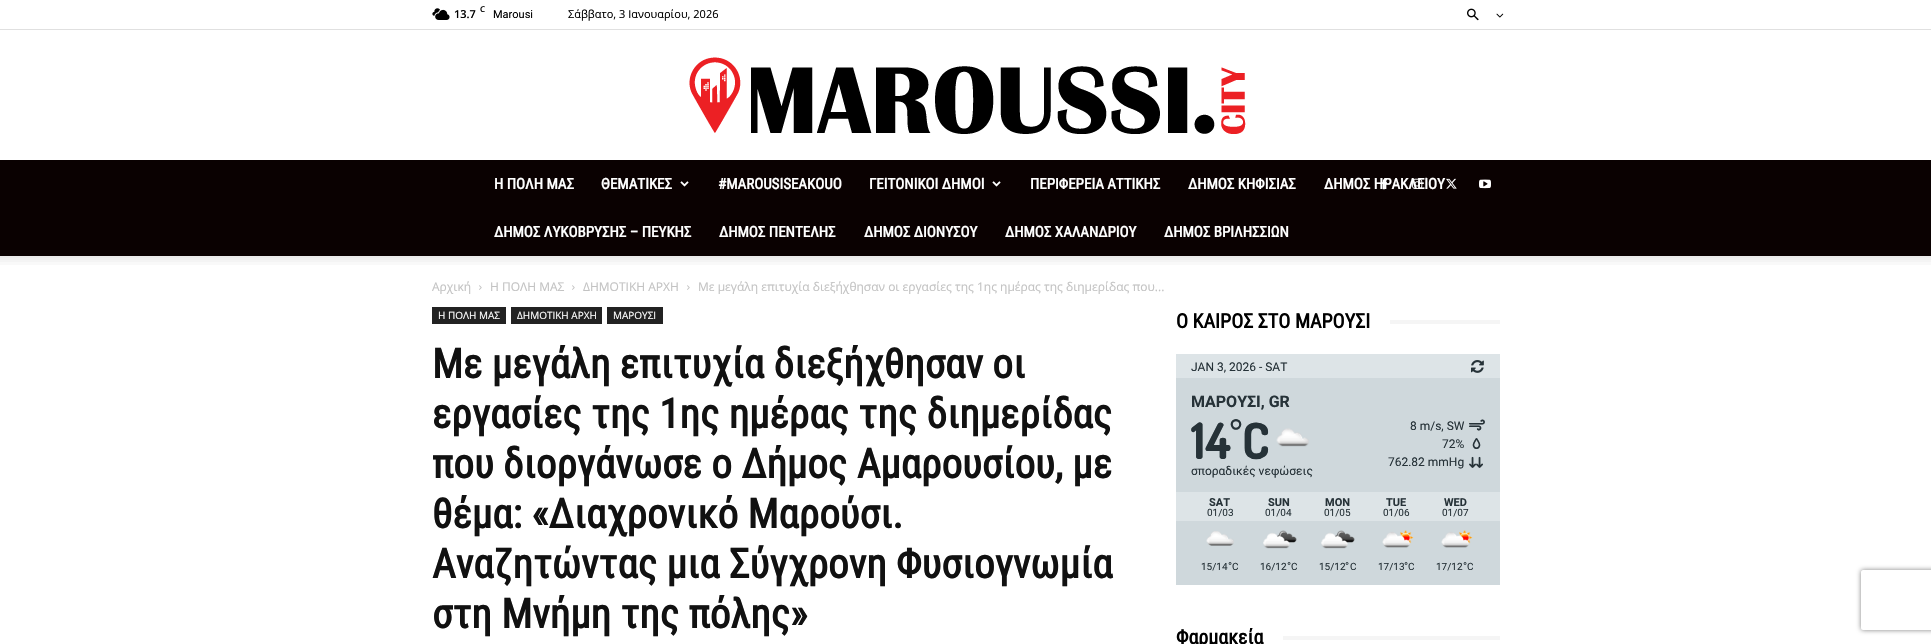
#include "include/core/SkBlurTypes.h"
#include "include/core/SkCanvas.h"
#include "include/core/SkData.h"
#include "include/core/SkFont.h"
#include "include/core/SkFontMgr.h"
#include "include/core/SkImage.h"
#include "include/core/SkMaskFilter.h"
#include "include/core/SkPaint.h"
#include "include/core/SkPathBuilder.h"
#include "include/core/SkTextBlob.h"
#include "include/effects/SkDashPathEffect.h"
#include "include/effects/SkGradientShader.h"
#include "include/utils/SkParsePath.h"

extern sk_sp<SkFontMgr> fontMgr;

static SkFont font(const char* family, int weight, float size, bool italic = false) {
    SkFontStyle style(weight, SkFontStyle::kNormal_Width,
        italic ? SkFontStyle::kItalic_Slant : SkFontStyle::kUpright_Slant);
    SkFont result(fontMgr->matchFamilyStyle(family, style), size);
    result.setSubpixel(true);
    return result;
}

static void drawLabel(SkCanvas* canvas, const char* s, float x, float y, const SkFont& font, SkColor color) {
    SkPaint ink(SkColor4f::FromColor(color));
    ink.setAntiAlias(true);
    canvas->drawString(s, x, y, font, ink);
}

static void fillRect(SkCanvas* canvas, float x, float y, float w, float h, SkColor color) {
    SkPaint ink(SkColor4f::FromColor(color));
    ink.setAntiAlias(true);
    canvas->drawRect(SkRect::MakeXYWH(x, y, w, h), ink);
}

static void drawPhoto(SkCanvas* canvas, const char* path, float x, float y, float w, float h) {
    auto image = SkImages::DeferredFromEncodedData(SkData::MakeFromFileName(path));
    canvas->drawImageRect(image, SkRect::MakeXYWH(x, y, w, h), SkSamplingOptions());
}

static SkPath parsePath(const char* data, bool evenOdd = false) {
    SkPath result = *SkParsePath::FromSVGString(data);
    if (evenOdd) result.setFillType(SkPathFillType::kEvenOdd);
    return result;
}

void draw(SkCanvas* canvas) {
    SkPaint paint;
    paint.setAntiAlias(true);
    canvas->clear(0xFFFFFFFF);
    fillRect(canvas, 0, 29, 1931, 1, 0xFFE0E0E0);
    drawPhoto(canvas, "assets/img1.png", 432, 8, 18, 12);
    SkFont font1 = font("Open Sans", 600, 11);
    drawLabel(canvas, "13.7", 454, 18, font1, 0xFF000000);
    SkFont font2 = font("Open Sans", 600, 8);
    drawLabel(canvas, "C", 480, 12, font2, 0xFF000000);
    SkFont font3 = font("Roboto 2", 400, 11);
    drawLabel(canvas, "Marousi", 493, 18, font3, 0xFF000000);
    SkFont font4 = font("Open Sans", 400, 11);
    drawLabel(canvas, "Σάββατο, 3 Ιανουαρίου, 2026", 568, 18, font4, 0xFF000000);
    drawPhoto(canvas, "assets/img2.png", 1467, 8, 12, 13);
    drawPhoto(canvas, "assets/img3.png", 1496, 13, 8, 5);
    drawPhoto(canvas, "assets/img4.png", 689, 57, 557, 77);
    fillRect(canvas, 0, 160, 1931, 96, 0xFF0A0101);
    SkFont font5 = font("Roboto Condensed", 700, 15);
    drawLabel(canvas, "Η ΠΟΛΗ ΜΑΣ", 494, 189, font5, 0xFFFFFFFF);
    drawLabel(canvas, "ΘΕΜΑΤΙΚΕΣ", 601, 189, font5, 0xFFFFFFFF);
    drawPhoto(canvas, "assets/img5.png", 680, 181, 9, 6);
    drawLabel(canvas, "#MAROUSISEAKOUO", 718, 189, font5, 0xFFFFFFFF);
    drawLabel(canvas, "ΓΕΙΤΟΝΙΚΟΙ ΔΗΜΟΙ", 869, 189, font5, 0xFFFFFFFF);
    drawPhoto(canvas, "assets/img5.png", 992, 181, 9, 6);
    drawLabel(canvas, "ΠΕΡΙΦΕΡΕΙΑ ΑΤΤΙΚΗΣ", 1030, 189, font5, 0xFFFFFFFF);
    drawLabel(canvas, "ΔΗΜΟΣ ΚΗΦΙΣΙΑΣ", 1188, 189, font5, 0xFFFFFFFF);
    drawLabel(canvas, "ΔΗΜΟΣ ΗΡΑΚΛΕΙΟΥ", 1324, 189, font5, 0xFFFFFFFF);
    drawLabel(canvas, "ΔΗΜΟΣ ΛΥΚΟΒΡΥΣΗΣ – ΠΕΥΚΗΣ", 494, 237, font5, 0xFFFFFFFF);
    drawLabel(canvas, "ΔΗΜΟΣ ΠΕΝΤΕΛΗΣ", 719, 237, font5, 0xFFFFFFFF);
    drawLabel(canvas, "ΔΗΜΟΣ ΔΙΟΝΥΣΟΥ", 864, 237, font5, 0xFFFFFFFF);
    drawLabel(canvas, "ΔΗΜΟΣ ΧΑΛΑΝΔΡΙΟΥ", 1005, 237, font5, 0xFFFFFFFF);
    drawLabel(canvas, "ΔΗΜΟΣ ΒΡΙΛΗΣΣΙΩΝ", 1164, 237, font5, 0xFFFFFFFF);
    drawPhoto(canvas, "assets/img6.png", 1381, 178, 6, 12);
    drawPhoto(canvas, "assets/img7.png", 1412, 178, 11, 11);
    drawPhoto(canvas, "assets/img8.png", 1446, 178, 11, 11);
    drawPhoto(canvas, "assets/img9.png", 1479, 179, 12, 10);
    drawPhoto(canvas, "assets/img10.png", 0, 256, 1931, 9);
    SkFont font6 = font("Open Sans", 400, 12);
    drawLabel(canvas, "Αρχική", 432, 291, font6, 0xFFC3C3C3);
    drawPhoto(canvas, "assets/img11.png", 479, 285, 3, 5);
    drawLabel(canvas, "Η ΠΟΛΗ ΜΑΣ", 490, 291, font6, 0xFFC3C3C3);
    drawPhoto(canvas, "assets/img11.png", 572, 285, 3, 5);
    drawLabel(canvas, "ΔΗΜΟΤΙΚΗ ΑΡΧΗ", 583, 291, font6, 0xFFC3C3C3);
    drawPhoto(canvas, "assets/img11.png", 687, 285, 3, 5);
    drawLabel(canvas, "Με μεγάλη επιτυχία διεξήχθησαν οι εργασίες της 1ης ημέρας της διημερίδας που...", 698, 291, font6, 0xFFC3C3C3);
    fillRect(canvas, 432, 307, 74, 17, 0xFF222222);
    SkFont font7 = font("Open Sans", 400, 10);
    drawLabel(canvas, "Η ΠΟΛΗ ΜΑΣ", 438, 319, font7, 0xFFFFFFFF);
    fillRect(canvas, 511, 307, 91, 17, 0xFF222222);
    drawLabel(canvas, "ΔΗΜΟΤΙΚΗ ΑΡΧΗ", 517, 319, font7, 0xFFFFFFFF);
    fillRect(canvas, 607, 307, 56, 17, 0xFF222222);
    drawLabel(canvas, "ΜΑΡΟΥΣΙ", 613, 319, font7, 0xFFFFFFFF);
    SkFont font8 = font("Roboto Condensed", 700, 41);
    drawLabel(canvas, "Με μεγάλη επιτυχία διεξήχθησαν οι", 432, 378, font8, 0xFF111111);
    drawLabel(canvas, "εργασίες της 1ης ημέρας της διημερίδας", 432, 428, font8, 0xFF111111);
    drawLabel(canvas, "που διοργάνωσε ο Δήμος Αμαρουσίου, με", 432, 478, font8, 0xFF111111);
    drawLabel(canvas, "θέμα: «Διαχρονικό Μαρούσι.", 432, 528, font8, 0xFF111111);
    drawLabel(canvas, "Αναζητώντας μια Σύγχρονη Φυσιογνωμία", 432, 578, font8, 0xFF111111);
    drawLabel(canvas, "στη Μνήμη της πόλης»", 432, 628, font8, 0xFF111111);
    SkFont font9 = font("Roboto Condensed", 700, 20);
    drawLabel(canvas, "Ο ΚΑΙΡΟΣ ΣΤΟ ΜΑΡΟΥΣΙ", 1176, 328, font9, 0xFF000000);
    fillRect(canvas, 1390, 320, 110, 4, 0xFFF5F5F5);
    fillRect(canvas, 1176, 378, 324, 207, 0xFFCFD8DC);
    fillRect(canvas, 1176, 354, 324, 24, 0xFFDDE4E7);
    SkFont font10 = font("Roboto", 400, 12);
    drawLabel(canvas, "JAN 3, 2026 - SAT", 1191, 371, font10, 0xFF263238);
    drawPhoto(canvas, "assets/img12.png", 1471, 360, 13, 13);
    SkFont font11 = font("Roboto", 700, 16);
    drawLabel(canvas, "ΜΑΡΟΥΣΙ, GR", 1191, 407, font11, 0xFF263238);
    canvas->save();
    canvas->clipRect(SkRect::MakeXYWH(1191, 415, 125, 50));
    SkFont font12 = font("Dosis", 700, 50);
    drawLabel(canvas, "14", 1191, 459, font12, 0xFF263238);
    canvas->restore();
    SkFont font13 = font("Dosis", 700, 30);
    drawLabel(canvas, "°", 1230, 442, font13, 0xFF263238);
    drawLabel(canvas, "C", 1242, 459, font12, 0xFF263238);
    drawPhoto(canvas, "assets/img13.png", 1276, 428, 33, 19);
    drawLabel(canvas, "σποραδικές νεφώσεις", 1191, 475, font10, 0xFF263238);
    drawLabel(canvas, "8 m/s, SW", 1410, 430, font10, 0xFF263238);
    SkFont font14 = font("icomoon", 400, 18);
    drawLabel(canvas, "|", 1468, 434, font14, 0xFF263238);
    drawLabel(canvas, "72%", 1442, 448, font10, 0xFF263238);
    SkFont font15 = font("icomoon", 400, 17);
    drawLabel(canvas, "-", 1468, 452, font15, 0xFF263238);
    drawLabel(canvas, "762.82 mmHg", 1388, 466, font10, 0xFF263238);
    drawPhoto(canvas, "assets/img14.png", 1469, 456, 7, 12);
    drawPhoto(canvas, "assets/img14.png", 1476, 456, 7, 12);
    fillRect(canvas, 1176, 492, 324, 29, 0xFFDDE4E7);
    SkFont font16 = font("Roboto", 700, 11);
    drawLabel(canvas, "SAT", 1209, 506, font16, 0xFF263238);
    SkFont font17 = font("Roboto", 400, 10);
    drawLabel(canvas, "01/03", 1207, 516, font17, 0xFF263238);
    drawLabel(canvas, "SUN", 1268, 506, font16, 0xFF263238);
    drawLabel(canvas, "01/04", 1265, 516, font17, 0xFF263238);
    drawLabel(canvas, "MON", 1325, 506, font16, 0xFF263238);
    drawLabel(canvas, "01/05", 1324, 516, font17, 0xFF263238);
    drawLabel(canvas, "TUE", 1386, 506, font16, 0xFF263238);
    drawLabel(canvas, "01/06", 1383, 516, font17, 0xFF263238);
    drawLabel(canvas, "WED", 1444, 506, font16, 0xFF263238);
    drawLabel(canvas, "01/07", 1442, 516, font17, 0xFF263238);
    drawPhoto(canvas, "assets/img15.png", 1206, 531, 28, 15);
    drawLabel(canvas, "15/14", 1201, 570, font17, 0xFF263238);
    SkFont font18 = font("Roboto", 400, 11);
    drawLabel(canvas, "°", 1228, 570, font18, 0xFF263238);
    drawLabel(canvas, "C", 1232, 570, font17, 0xFF263238);
    drawPhoto(canvas, "assets/img16.png", 1263, 530, 34, 19);
    drawLabel(canvas, "16/12", 1260, 570, font17, 0xFF263238);
    drawLabel(canvas, "°", 1287, 570, font18, 0xFF263238);
    drawLabel(canvas, "C", 1291, 570, font17, 0xFF263238);
    drawPhoto(canvas, "assets/img16.png", 1321, 530, 34, 19);
    drawLabel(canvas, "15/12", 1319, 570, font17, 0xFF263238);
    drawLabel(canvas, "°", 1345, 570, font18, 0xFF263238);
    drawLabel(canvas, "C", 1350, 570, font17, 0xFF263238);
    drawPhoto(canvas, "assets/img17.png", 1382, 530, 32, 18);
    drawLabel(canvas, "17/13", 1378, 570, font17, 0xFF263238);
    drawLabel(canvas, "°", 1404, 570, font18, 0xFF263238);
    drawLabel(canvas, "C", 1408, 570, font17, 0xFF263238);
    drawPhoto(canvas, "assets/img17.png", 1441, 530, 32, 18);
    drawLabel(canvas, "17/12", 1436, 570, font17, 0xFF263238);
    drawLabel(canvas, "°", 1463, 570, font18, 0xFF263238);
    drawLabel(canvas, "C", 1467, 570, font17, 0xFF263238);
    drawLabel(canvas, "Φαρμακεία", 1176, 644, font9, 0xFF000000);
    fillRect(canvas, 1283, 636, 217, 4, 0xFFF5F5F5);
    canvas->save();
    canvas->clipPath(parsePath("M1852 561H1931V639H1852ZM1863 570H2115C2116 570 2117 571 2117 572V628C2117 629 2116 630 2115 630H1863C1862 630 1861 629 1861 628V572C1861 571 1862 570 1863 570Z", true), true);
    paint.setColor(0xFF808080);
    paint.setMaskFilter(SkMaskFilter::MakeBlur(kNormal_SkBlurStyle, 2.5f));
    canvas->drawRoundRect(SkRect::MakeXYWH(1861, 570, 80, 60), 2, 2, paint);
    paint.setMaskFilter(nullptr);
    canvas->restore();
}
